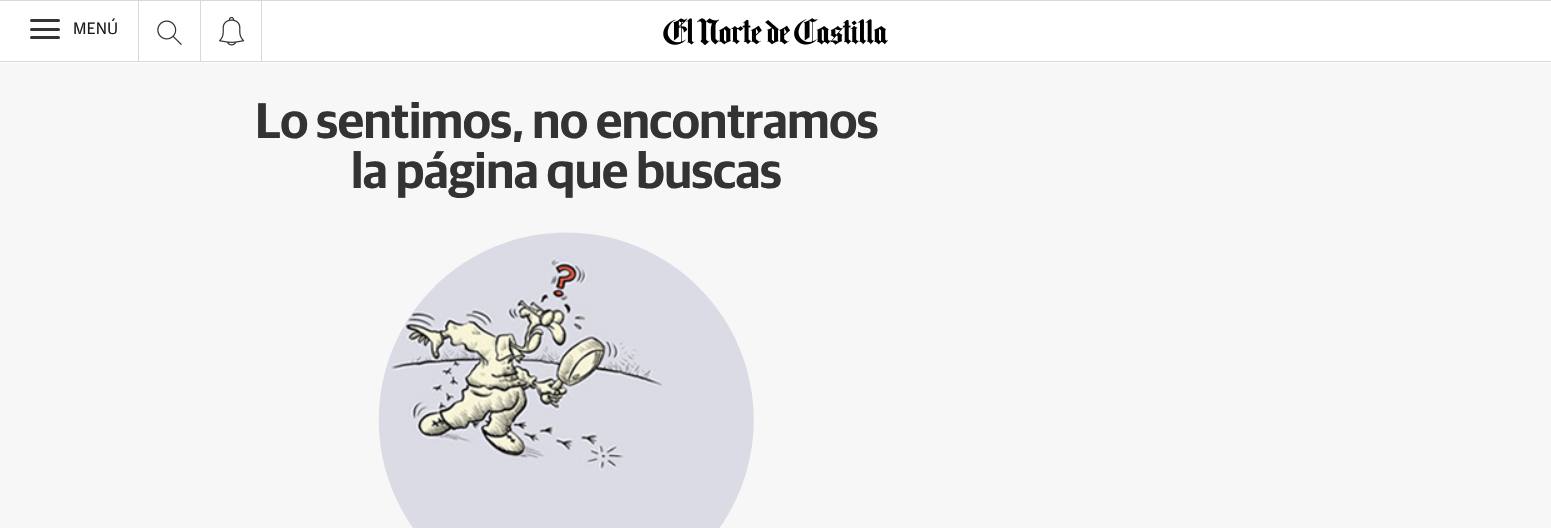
#include "include/core/SkBlurTypes.h"
#include "include/core/SkCanvas.h"
#include "include/core/SkData.h"
#include "include/core/SkFont.h"
#include "include/core/SkFontMgr.h"
#include "include/core/SkImage.h"
#include "include/core/SkMaskFilter.h"
#include "include/core/SkPaint.h"
#include "include/core/SkPathBuilder.h"
#include "include/core/SkTextBlob.h"
#include "include/effects/SkDashPathEffect.h"
#include "include/effects/SkGradientShader.h"
#include "include/utils/SkParsePath.h"

extern sk_sp<SkFontMgr> fontMgr;

static SkFont font(const char* family, int weight, float size, bool italic = false) {
    SkFontStyle style(weight, SkFontStyle::kNormal_Width,
        italic ? SkFontStyle::kItalic_Slant : SkFontStyle::kUpright_Slant);
    SkFont result(fontMgr->matchFamilyStyle(family, style), size);
    result.setSubpixel(true);
    return result;
}

static void drawLabel(SkCanvas* canvas, const char* s, float x, float y, const SkFont& font, SkColor color) {
    SkPaint ink(SkColor4f::FromColor(color));
    ink.setAntiAlias(true);
    canvas->drawString(s, x, y, font, ink);
}

static void drawTracked(SkCanvas* canvas, const char* s, float x, float y, const SkFont& font, const SkPaint& ink, float letter, float word) {
    std::vector<SkGlyphID> glyphs(font.countText(s, strlen(s), SkTextEncoding::kUTF8));
    std::vector<float> xs(glyphs.size());
    font.textToGlyphs(s, strlen(s), SkTextEncoding::kUTF8, glyphs);
    font.getXPos(glyphs, xs, x);
    float extra = 0;
    for (size_t i = 0; i < glyphs.size(); i++) {
        xs[i] += extra;
        extra += letter + word * (glyphs[i] == font.unicharToGlyph(' '));
    }
    canvas->drawTextBlob(SkTextBlob::MakeFromPosHGlyphs(glyphs, xs, y, font), 0, 0, ink);
}

static void fillRect(SkCanvas* canvas, float x, float y, float w, float h, SkColor color) {
    SkPaint ink(SkColor4f::FromColor(color));
    ink.setAntiAlias(true);
    canvas->drawRect(SkRect::MakeXYWH(x, y, w, h), ink);
}

static void fillRRect(SkCanvas* canvas, float x, float y, float w, float h, float radius, SkColor color) {
    SkPaint ink(SkColor4f::FromColor(color));
    ink.setAntiAlias(true);
    canvas->drawRoundRect(SkRect::MakeXYWH(x, y, w, h), radius, radius, ink);
}

static void drawPhoto(SkCanvas* canvas, const char* path, float x, float y, float w, float h) {
    auto image = SkImages::DeferredFromEncodedData(SkData::MakeFromFileName(path));
    canvas->drawImageRect(image, SkRect::MakeXYWH(x, y, w, h), SkSamplingOptions());
}

void draw(SkCanvas* canvas) {
    SkPaint paint;
    paint.setAntiAlias(true);
    canvas->clear(0xFFF7F7F8);
    fillRect(canvas, 0, 1, 1551, 62, 0xFFFFFFFF);
    fillRect(canvas, 0, 0, 1551, 1, 0xFFD8D8D8);
    fillRect(canvas, 0, 61, 1551, 1, 0xFFD8D8D8);
    fillRRect(canvas, 30, 19, 30, 3, 1.5f, 0xFF333333);
    SkFont font1 = font("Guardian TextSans", 400, 16);
    drawLabel(canvas, "MENÚ", 73, 34, font1, 0xFF1A1A1A);
    fillRRect(canvas, 30, 28, 30, 3, 1.5f, 0xFF333333);
    fillRRect(canvas, 30, 36, 30, 3, 1.5f, 0xFF333333);
    fillRect(canvas, 138, 1, 1, 60, 0xFFD8D8D8);
    drawPhoto(canvas, "assets/img1.png", 157, 20, 25, 25);
    fillRect(canvas, 261, 1, 1, 60, 0xFFD8D8D8);
    fillRect(canvas, 200, 1, 1, 60, 0xFFD8D8D8);
    drawPhoto(canvas, "assets/img2.png", 219, 16, 26, 30);
    drawPhoto(canvas, "assets/img3.png", 663, 18, 225, 27);
    SkFont font2 = font("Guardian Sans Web", 600, 50);
    paint.setColor(0xFF333333);
    drawTracked(canvas, "Lo sentimos, no encontramos", 255, 138, font2, paint, -0.5f, 0);
    drawTracked(canvas, "la página que buscas", 351, 188, font2, paint, -0.5f, 0);
    drawPhoto(canvas, "assets/img4.png", 378, 232, 376, 296);
}
